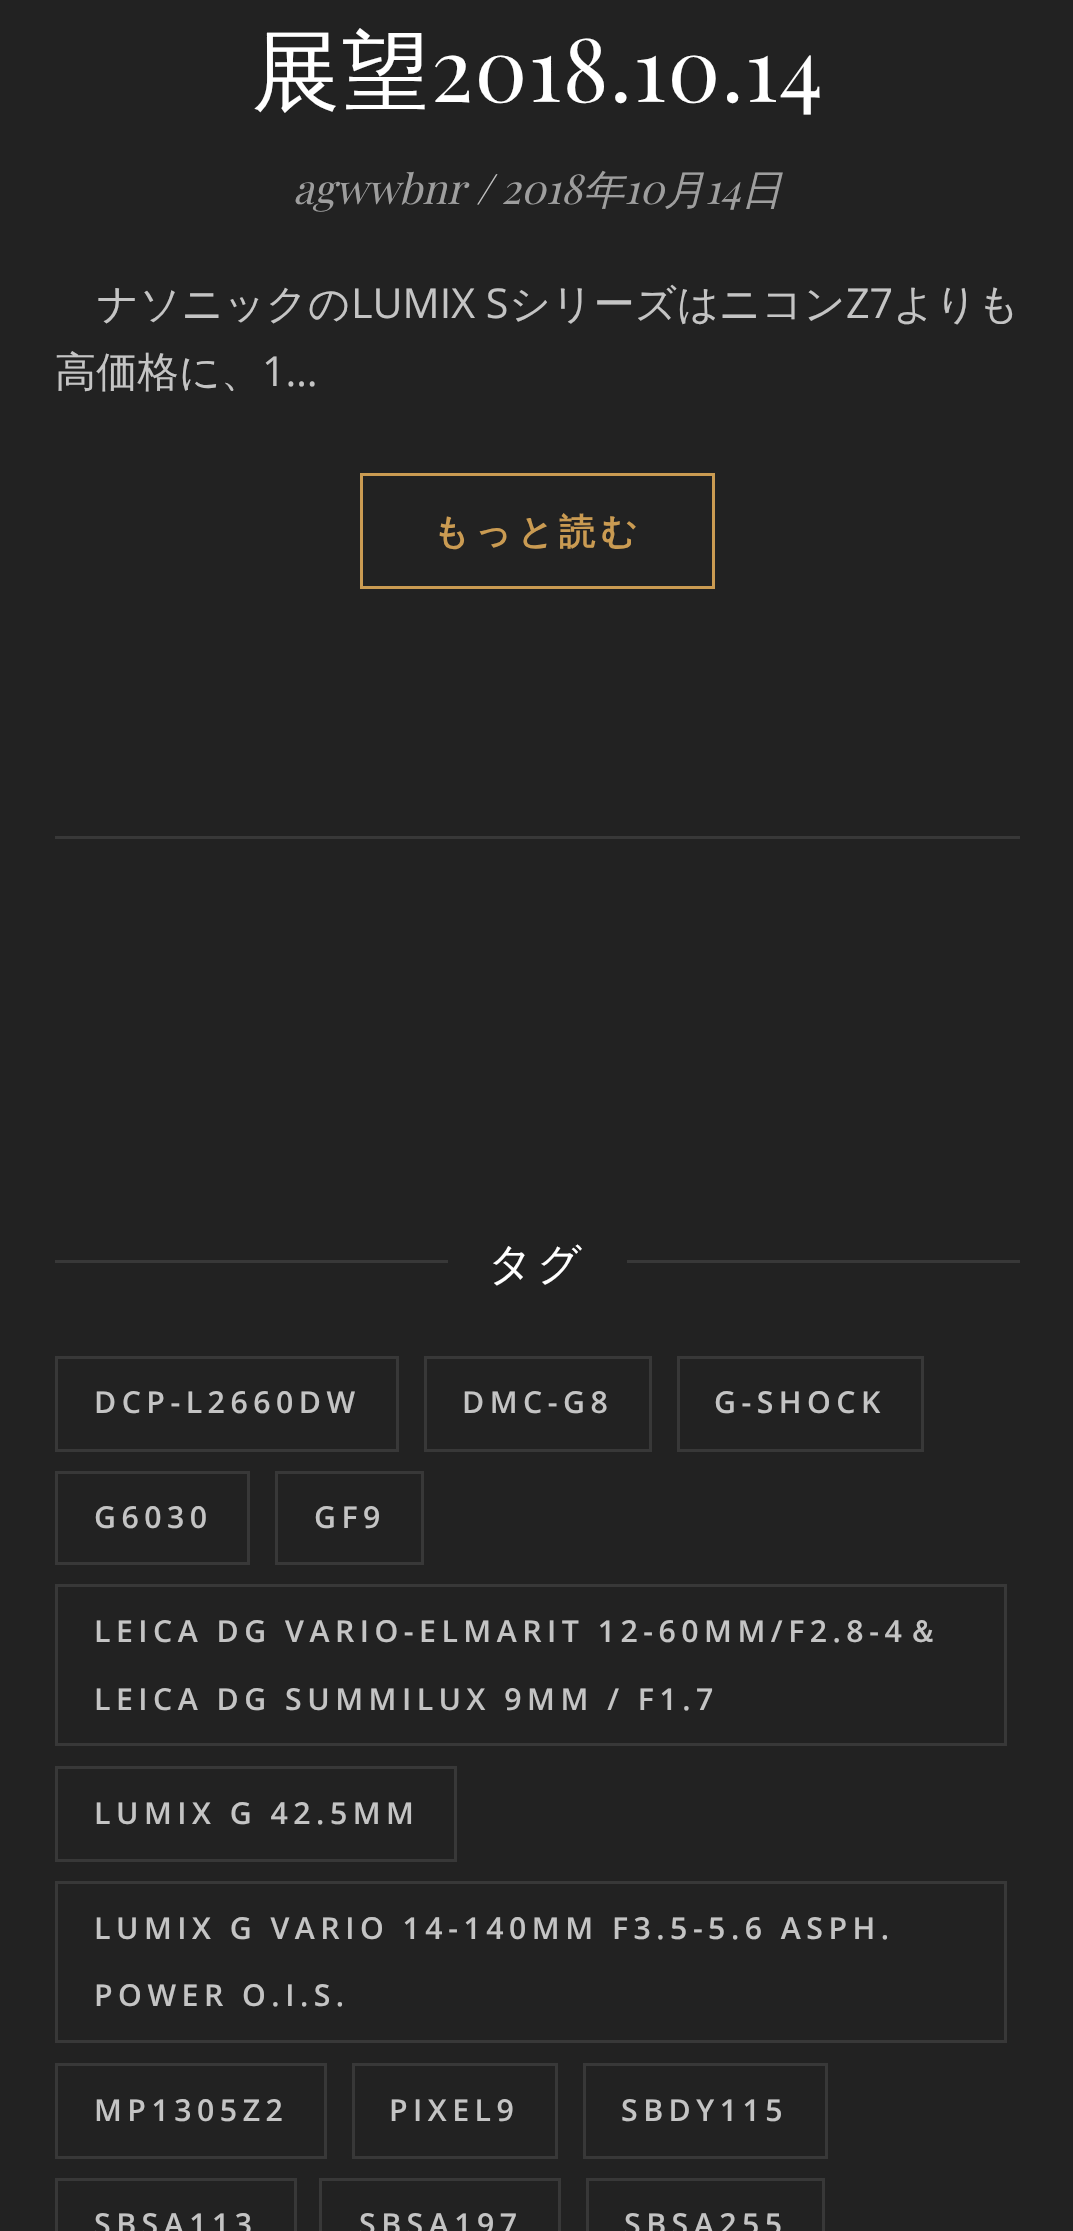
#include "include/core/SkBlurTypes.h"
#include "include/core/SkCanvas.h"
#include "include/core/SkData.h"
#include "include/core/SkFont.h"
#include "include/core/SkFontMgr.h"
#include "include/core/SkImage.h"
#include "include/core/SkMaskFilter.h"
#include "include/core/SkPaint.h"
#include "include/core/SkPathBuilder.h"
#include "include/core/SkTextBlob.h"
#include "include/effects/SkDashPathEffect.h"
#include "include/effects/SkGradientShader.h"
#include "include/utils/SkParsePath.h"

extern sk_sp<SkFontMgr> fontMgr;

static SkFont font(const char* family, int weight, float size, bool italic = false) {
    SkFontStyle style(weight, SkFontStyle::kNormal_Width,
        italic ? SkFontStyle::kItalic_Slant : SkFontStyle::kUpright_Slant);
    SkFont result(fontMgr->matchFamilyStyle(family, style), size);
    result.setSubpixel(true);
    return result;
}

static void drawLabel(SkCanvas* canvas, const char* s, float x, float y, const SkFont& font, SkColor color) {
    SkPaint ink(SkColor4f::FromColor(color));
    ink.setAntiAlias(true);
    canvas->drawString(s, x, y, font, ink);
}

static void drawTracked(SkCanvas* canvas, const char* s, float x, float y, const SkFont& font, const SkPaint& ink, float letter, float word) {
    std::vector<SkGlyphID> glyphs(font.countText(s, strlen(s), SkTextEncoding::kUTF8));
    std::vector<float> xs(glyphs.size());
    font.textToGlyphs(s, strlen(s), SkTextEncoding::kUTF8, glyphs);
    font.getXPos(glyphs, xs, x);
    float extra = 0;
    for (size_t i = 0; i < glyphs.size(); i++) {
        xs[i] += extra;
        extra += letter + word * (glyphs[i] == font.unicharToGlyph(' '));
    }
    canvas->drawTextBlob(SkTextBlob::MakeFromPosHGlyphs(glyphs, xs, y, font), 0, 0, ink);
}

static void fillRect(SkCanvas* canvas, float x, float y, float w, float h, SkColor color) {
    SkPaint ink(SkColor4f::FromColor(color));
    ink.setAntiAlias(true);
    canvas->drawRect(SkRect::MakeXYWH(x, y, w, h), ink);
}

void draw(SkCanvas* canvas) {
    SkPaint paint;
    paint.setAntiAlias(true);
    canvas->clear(0xFF222222);
    fillRect(canvas, 55, 836, 965, 3, 0xFF383838);
    SkFont font1 = font("WenQuanYi Zen Hei", 500, 88);
    paint.setColor(0xFFFFFFFF);
    drawTracked(canvas, "展望", 252, 102, font1, paint, 1.4f, 0);
    SkFont font2 = font("Playfair Display", 400, 88);
    drawTracked(canvas, "2018.10.14", 431, 102, font2, paint, 1.4f, 0);
    SkFont font3 = font("Playfair Display", 400, 41.25f, true);
    drawLabel(canvas, "agwwbnr", 293, 204, font3, 0xFF9E9E9E);
    drawLabel(canvas, "/", 476, 204, font3, 0xFFC4C4C4);
    drawLabel(canvas, "2018", 501, 204, font3, 0xFF9E9E9E);
    SkFont font4 = font("WenQuanYi Zen Hei", 500, 41.25f, true);
    drawLabel(canvas, "年", 583, 204, font4, 0xFF9E9E9E);
    drawLabel(canvas, "10", 624, 204, font3, 0xFF9E9E9E);
    drawLabel(canvas, "月", 664, 204, font4, 0xFF9E9E9E);
    drawLabel(canvas, "14", 705, 204, font3, 0xFF9E9E9E);
    drawLabel(canvas, "日", 741, 204, font4, 0xFF9E9E9E);
    SkFont font5 = font("Noto Sans", 400, 41.25f);
    drawLabel(canvas, "パ", 55, 318, font5, 0xFFC4C4C4);
    SkFont font6 = font("WenQuanYi Zen Hei", 500, 41.25f);
    drawLabel(canvas, "ナソニックの", 97, 318, font6, 0xFFC4C4C4);
    SkFont font7 = font("Open Sans", 400, 41.25f);
    drawLabel(canvas, "LUMIX S", 351, 318, font7, 0xFFC4C4C4);
    drawLabel(canvas, "シリーズはニコン", 509, 318, font6, 0xFFC4C4C4);
    drawLabel(canvas, "Z7", 846, 318, font7, 0xFFC4C4C4);
    drawLabel(canvas, "よりも", 893, 318, font6, 0xFFC4C4C4);
    drawLabel(canvas, "高価格に、", 55, 386, font6, 0xFFC4C4C4);
    drawLabel(canvas, "1…", 262, 386, font7, 0xFFC4C4C4);
    paint.setStroke(true);
    paint.setStrokeWidth(3);
    paint.setColor(0xFFCA9B52);
    canvas->drawRect(SkRect::MakeXYWH(361.5f, 474.5f, 352, 113), paint);
    SkFont font8 = font("WenQuanYi Zen Hei", 700, 35.75f);
    paint.setStroke(false);
    drawTracked(canvas, "もっと読む", 433, 544, font8, paint, 5.5f, 0);
    fillRect(canvas, 55, 1260, 393, 3, 0xFF383838);
    SkFont font9 = font("WenQuanYi Zen Hei", 500, 44);
    paint.setColor(0xFFFFFFFF);
    drawTracked(canvas, "タグ", 488, 1279, font9, paint, 4, 0);
    fillRect(canvas, 627, 1260, 393, 3, 0xFF383838);
    paint.setStroke(true);
    paint.setColor(0xFF383838);
    canvas->drawRect(SkRect::MakeXYWH(56.5f, 1357.5f, 341, 93), paint);
    SkFont font10 = font("Open Sans", 600, 30.25f);
    paint.setStroke(false);
    paint.setColor(0xFFC4C4C4);
    drawTracked(canvas, "DCP-L2660DW", 94, 1413, font10, paint, 5.5f, 0);
    paint.setStroke(true);
    paint.setColor(0xFF383838);
    canvas->drawRect(SkRect::MakeXYWH(425.5f, 1357.5f, 225, 93), paint);
    paint.setStroke(false);
    paint.setColor(0xFFC4C4C4);
    drawTracked(canvas, "DMC-G8", 462, 1413, font10, paint, 5.5f, 0);
    paint.setStroke(true);
    paint.setColor(0xFF383838);
    canvas->drawRect(SkRect::MakeXYWH(678.5f, 1357.5f, 244, 93), paint);
    paint.setStroke(false);
    paint.setColor(0xFFC4C4C4);
    drawTracked(canvas, "G-SHOCK", 714, 1413, font10, paint, 5.5f, 0);
    paint.setStroke(true);
    paint.setColor(0xFF383838);
    canvas->drawRect(SkRect::MakeXYWH(56.5f, 1472.5f, 192, 91), paint);
    paint.setStroke(false);
    paint.setColor(0xFFC4C4C4);
    drawTracked(canvas, "G6030", 94, 1528, font10, paint, 5.5f, 0);
    paint.setStroke(true);
    paint.setColor(0xFF383838);
    canvas->drawRect(SkRect::MakeXYWH(276.5f, 1472.5f, 146, 91), paint);
    paint.setStroke(false);
    paint.setColor(0xFFC4C4C4);
    drawTracked(canvas, "GF9", 314, 1528, font10, paint, 5.5f, 0);
    paint.setStroke(true);
    paint.setColor(0xFF383838);
    canvas->drawRect(SkRect::MakeXYWH(56.5f, 1585.5f, 949, 159), paint);
    paint.setStroke(false);
    paint.setColor(0xFFC4C4C4);
    drawTracked(canvas, "LEICA DG VARIO-ELMARIT 12-60MM/F2.8-4", 94, 1642, font10, paint, 5.5f, 0);
    SkFont font11 = font("WenQuanYi Zen Hei", 700, 30.25f);
    drawTracked(canvas, "＆", 907, 1642, font11, paint, 5.5f, 0);
    drawTracked(canvas, "LEICA DG SUMMILUX 9MM / F1.7", 94, 1710, font10, paint, 5.5f, 0);
    paint.setStroke(true);
    paint.setColor(0xFF383838);
    canvas->drawRect(SkRect::MakeXYWH(56.5f, 1767.5f, 399, 93), paint);
    paint.setStroke(false);
    paint.setColor(0xFFC4C4C4);
    drawTracked(canvas, "LUMIX G 42.5MM", 94, 1824, font10, paint, 5.5f, 0);
    paint.setStroke(true);
    paint.setColor(0xFF383838);
    canvas->drawRect(SkRect::MakeXYWH(56.5f, 1882.5f, 949, 159), paint);
    paint.setStroke(false);
    paint.setColor(0xFFC4C4C4);
    drawTracked(canvas, "LUMIX G VARIO 14-140MM F3.5-5.6 ASPH.", 94, 1939, font10, paint, 5.5f, 0);
    drawTracked(canvas, "POWER O.I.S.", 94, 2006, font10, paint, 5.5f, 0);
    paint.setStroke(true);
    paint.setColor(0xFF383838);
    canvas->drawRect(SkRect::MakeXYWH(56.5f, 2064.5f, 269, 93), paint);
    paint.setStroke(false);
    paint.setColor(0xFFC4C4C4);
    drawTracked(canvas, "MP1305Z2", 94, 2121, font10, paint, 5.5f, 0);
    paint.setStroke(true);
    paint.setColor(0xFF383838);
    canvas->drawRect(SkRect::MakeXYWH(353.5f, 2064.5f, 203, 93), paint);
    paint.setStroke(false);
    paint.setColor(0xFFC4C4C4);
    drawTracked(canvas, "PIXEL9", 389, 2121, font10, paint, 5.5f, 0);
    paint.setStroke(true);
    paint.setColor(0xFF383838);
    canvas->drawRect(SkRect::MakeXYWH(584.5f, 2064.5f, 242, 93), paint);
    paint.setStroke(false);
    paint.setColor(0xFFC4C4C4);
    drawTracked(canvas, "SBDY115", 621, 2121, font10, paint, 5.5f, 0);
    paint.setStroke(true);
    paint.setColor(0xFF383838);
    canvas->drawRect(SkRect::MakeXYWH(56.5f, 2179.5f, 239, 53), paint);
    paint.setStroke(false);
    paint.setColor(0xFFC4C4C4);
    drawTracked(canvas, "SBSA113", 94, 2235, font10, paint, 5.5f, 0);
    paint.setStroke(true);
    paint.setColor(0xFF383838);
    canvas->drawRect(SkRect::MakeXYWH(320.5f, 2179.5f, 239, 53), paint);
    paint.setStroke(false);
    paint.setColor(0xFFC4C4C4);
    drawTracked(canvas, "SBSA197", 359, 2235, font10, paint, 5.5f, 0);
    paint.setStroke(true);
    paint.setColor(0xFF383838);
    canvas->drawRect(SkRect::MakeXYWH(587.5f, 2179.5f, 236, 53), paint);
    paint.setStroke(false);
    paint.setColor(0xFFC4C4C4);
    drawTracked(canvas, "SBSA255", 624, 2235, font10, paint, 5.5f, 0);
}
